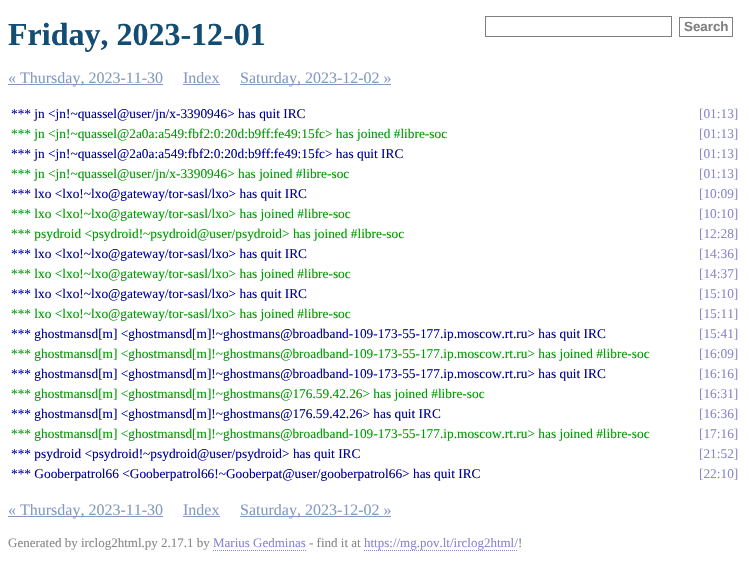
#include "include/core/SkBlurTypes.h"
#include "include/core/SkCanvas.h"
#include "include/core/SkData.h"
#include "include/core/SkFont.h"
#include "include/core/SkFontMgr.h"
#include "include/core/SkImage.h"
#include "include/core/SkMaskFilter.h"
#include "include/core/SkPaint.h"
#include "include/core/SkPathBuilder.h"
#include "include/core/SkTextBlob.h"
#include "include/effects/SkDashPathEffect.h"
#include "include/effects/SkGradientShader.h"
#include "include/utils/SkParsePath.h"

extern sk_sp<SkFontMgr> fontMgr;

static SkFont font(const char* family, int weight, float size, bool italic = false) {
    SkFontStyle style(weight, SkFontStyle::kNormal_Width,
        italic ? SkFontStyle::kItalic_Slant : SkFontStyle::kUpright_Slant);
    SkFont result(fontMgr->matchFamilyStyle(family, style), size);
    result.setSubpixel(true);
    return result;
}

static void drawLabel(SkCanvas* canvas, const char* s, float x, float y, const SkFont& font, SkColor color) {
    SkPaint ink(SkColor4f::FromColor(color));
    ink.setAntiAlias(true);
    canvas->drawString(s, x, y, font, ink);
}

static void fillRect(SkCanvas* canvas, float x, float y, float w, float h, SkColor color) {
    SkPaint ink(SkColor4f::FromColor(color));
    ink.setAntiAlias(true);
    canvas->drawRect(SkRect::MakeXYWH(x, y, w, h), ink);
}

static SkPath parsePath(const char* data, bool evenOdd = false) {
    SkPath result = *SkParsePath::FromSVGString(data);
    if (evenOdd) result.setFillType(SkPathFillType::kEvenOdd);
    return result;
}

void draw(SkCanvas* canvas) {
    SkPaint paint;
    paint.setAntiAlias(true);
    canvas->clear(0xFFFFFFFF);
    SkFont font1 = font("Liberation Serif", 700, 32);
    drawLabel(canvas, "Friday, 2023-12-01", 8, 45, font1, 0xFF134D73);
    paint.setStroke(true);
    paint.setStrokeWidth(1);
    paint.setColor(0xFF808080);
    canvas->drawRect(SkRect::MakeXYWH(485.5f, 16.5f, 186, 20), paint);
    canvas->drawRect(SkRect::MakeXYWH(679.5f, 17.5f, 53, 19), paint);
    SkFont font2 = font("Liberation Sans", 700, 13.35f);
    drawLabel(canvas, "Search", 684, 31, font2, 0xFF808080);
    fillRect(canvas, 8, 84, 155, 1, 0xFF869ABF);
    SkFont font3 = font("Liberation Serif", 400, 16);
    drawLabel(canvas, "« Thursday, 2023-11-30", 8, 83, font3, 0xFF869ABF);
    drawLabel(canvas, "Index", 183, 83, font3, 0xFF869ABF);
    fillRect(canvas, 183, 84, 37, 1, 0xFF869ABF);
    fillRect(canvas, 240, 84, 151, 1, 0xFF869ABF);
    drawLabel(canvas, "Saturday, 2023-12-02 »", 240, 83, font3, 0xFF869ABF);
    SkFont font4 = font("Liberation Serif", 400, 13.35f);
    drawLabel(canvas, "*** jn <jn!~quassel@user/jn/x-3390946> has quit IRC", 11, 118, font4, 0xFF000099);
    drawLabel(canvas, "[01:13]", 699, 118, font4, 0xFF8888CC);
    drawLabel(canvas, "*** jn <jn!~quassel@2a0a:a549:fbf2:0:20d:b9ff:fe49:15fc> has joined #libre-soc", 11, 138, font4, 0xFF009900);
    drawLabel(canvas, "[01:13]", 699, 138, font4, 0xFF8888CC);
    drawLabel(canvas, "*** jn <jn!~quassel@2a0a:a549:fbf2:0:20d:b9ff:fe49:15fc> has quit IRC", 11, 158, font4, 0xFF000099);
    drawLabel(canvas, "[01:13]", 699, 158, font4, 0xFF8888CC);
    drawLabel(canvas, "*** jn <jn!~quassel@user/jn/x-3390946> has joined #libre-soc", 11, 178, font4, 0xFF009900);
    drawLabel(canvas, "[01:13]", 699, 178, font4, 0xFF8888CC);
    drawLabel(canvas, "*** lxo <lxo!~lxo@gateway/tor-sasl/lxo> has quit IRC", 11, 198, font4, 0xFF000099);
    drawLabel(canvas, "[10:09]", 699, 198, font4, 0xFF8888CC);
    drawLabel(canvas, "*** lxo <lxo!~lxo@gateway/tor-sasl/lxo> has joined #libre-soc", 11, 218, font4, 0xFF009900);
    drawLabel(canvas, "[10:10]", 699, 218, font4, 0xFF8888CC);
    drawLabel(canvas, "*** psydroid <psydroid!~psydroid@user/psydroid> has joined #libre-soc", 11, 238, font4, 0xFF009900);
    drawLabel(canvas, "[12:28]", 699, 238, font4, 0xFF8888CC);
    drawLabel(canvas, "*** lxo <lxo!~lxo@gateway/tor-sasl/lxo> has quit IRC", 11, 258, font4, 0xFF000099);
    drawLabel(canvas, "[14:36]", 699, 258, font4, 0xFF8888CC);
    drawLabel(canvas, "*** lxo <lxo!~lxo@gateway/tor-sasl/lxo> has joined #libre-soc", 11, 278, font4, 0xFF009900);
    drawLabel(canvas, "[14:37]", 699, 278, font4, 0xFF8888CC);
    drawLabel(canvas, "*** lxo <lxo!~lxo@gateway/tor-sasl/lxo> has quit IRC", 11, 298, font4, 0xFF000099);
    drawLabel(canvas, "[15:10]", 699, 298, font4, 0xFF8888CC);
    drawLabel(canvas, "*** lxo <lxo!~lxo@gateway/tor-sasl/lxo> has joined #libre-soc", 11, 318, font4, 0xFF009900);
    drawLabel(canvas, "[15:11]", 699, 318, font4, 0xFF8888CC);
    drawLabel(canvas, "*** ghostmansd[m] <ghostmansd[m]!~ghostmans@broadband-109-173-55-177.ip.moscow.rt.ru> has quit IRC", 11, 338, font4, 0xFF000099);
    drawLabel(canvas, "[15:41]", 699, 338, font4, 0xFF8888CC);
    drawLabel(canvas, "*** ghostmansd[m] <ghostmansd[m]!~ghostmans@broadband-109-173-55-177.ip.moscow.rt.ru> has joined #libre-soc", 11, 358, font4, 0xFF009900);
    drawLabel(canvas, "[16:09]", 699, 358, font4, 0xFF8888CC);
    drawLabel(canvas, "*** ghostmansd[m] <ghostmansd[m]!~ghostmans@broadband-109-173-55-177.ip.moscow.rt.ru> has quit IRC", 11, 378, font4, 0xFF000099);
    drawLabel(canvas, "[16:16]", 699, 378, font4, 0xFF8888CC);
    drawLabel(canvas, "*** ghostmansd[m] <ghostmansd[m]!~ghostmans@176.59.42.26> has joined #libre-soc", 11, 398, font4, 0xFF009900);
    drawLabel(canvas, "[16:31]", 699, 398, font4, 0xFF8888CC);
    drawLabel(canvas, "*** ghostmansd[m] <ghostmansd[m]!~ghostmans@176.59.42.26> has quit IRC", 11, 418, font4, 0xFF000099);
    drawLabel(canvas, "[16:36]", 699, 418, font4, 0xFF8888CC);
    drawLabel(canvas, "*** ghostmansd[m] <ghostmansd[m]!~ghostmans@broadband-109-173-55-177.ip.moscow.rt.ru> has joined #libre-soc", 11, 438, font4, 0xFF009900);
    drawLabel(canvas, "[17:16]", 699, 438, font4, 0xFF8888CC);
    drawLabel(canvas, "*** psydroid <psydroid!~psydroid@user/psydroid> has quit IRC", 11, 458, font4, 0xFF000099);
    drawLabel(canvas, "[21:52]", 699, 458, font4, 0xFF8888CC);
    drawLabel(canvas, "*** Gooberpatrol66 <Gooberpatrol66!~Gooberpat@user/gooberpatrol66> has quit IRC", 11, 478, font4, 0xFF000099);
    drawLabel(canvas, "[22:10]", 699, 478, font4, 0xFF8888CC);
    fillRect(canvas, 8, 516, 155, 1, 0xFF869ABF);
    drawLabel(canvas, "« Thursday, 2023-11-30", 8, 515, font3, 0xFF869ABF);
    drawLabel(canvas, "Index", 183, 515, font3, 0xFF869ABF);
    fillRect(canvas, 183, 516, 37, 1, 0xFF869ABF);
    fillRect(canvas, 240, 516, 151, 1, 0xFF869ABF);
    drawLabel(canvas, "Saturday, 2023-12-02 »", 240, 515, font3, 0xFF869ABF);
    SkFont font5 = font("Liberation Serif", 400, 13);
    drawLabel(canvas, "Generated by irclog2html.py 2.17.1 by", 8, 547, font5, 0xFF888888);
    drawLabel(canvas, "Marius Gedminas", 213, 547, font5, 0xFF8888CC);
    paint.setColor(0xFF8888CC);
    paint.setPathEffect(SkDashPathEffect::Make({{1, 1}}, 0));
    canvas->drawPath(parsePath("M213 550.5H306"), paint);
    paint.setPathEffect(nullptr);
    drawLabel(canvas, "- find it at", 309, 547, font5, 0xFF888888);
    drawLabel(canvas, "https://mg.pov.lt/irclog2html/", 364, 547, font5, 0xFF8888CC);
    paint.setPathEffect(SkDashPathEffect::Make({{1, 1}}, 0));
    canvas->drawPath(parsePath("M364 550.5H518"), paint);
    paint.setPathEffect(nullptr);
    drawLabel(canvas, "!", 518, 547, font5, 0xFF888888);
}
